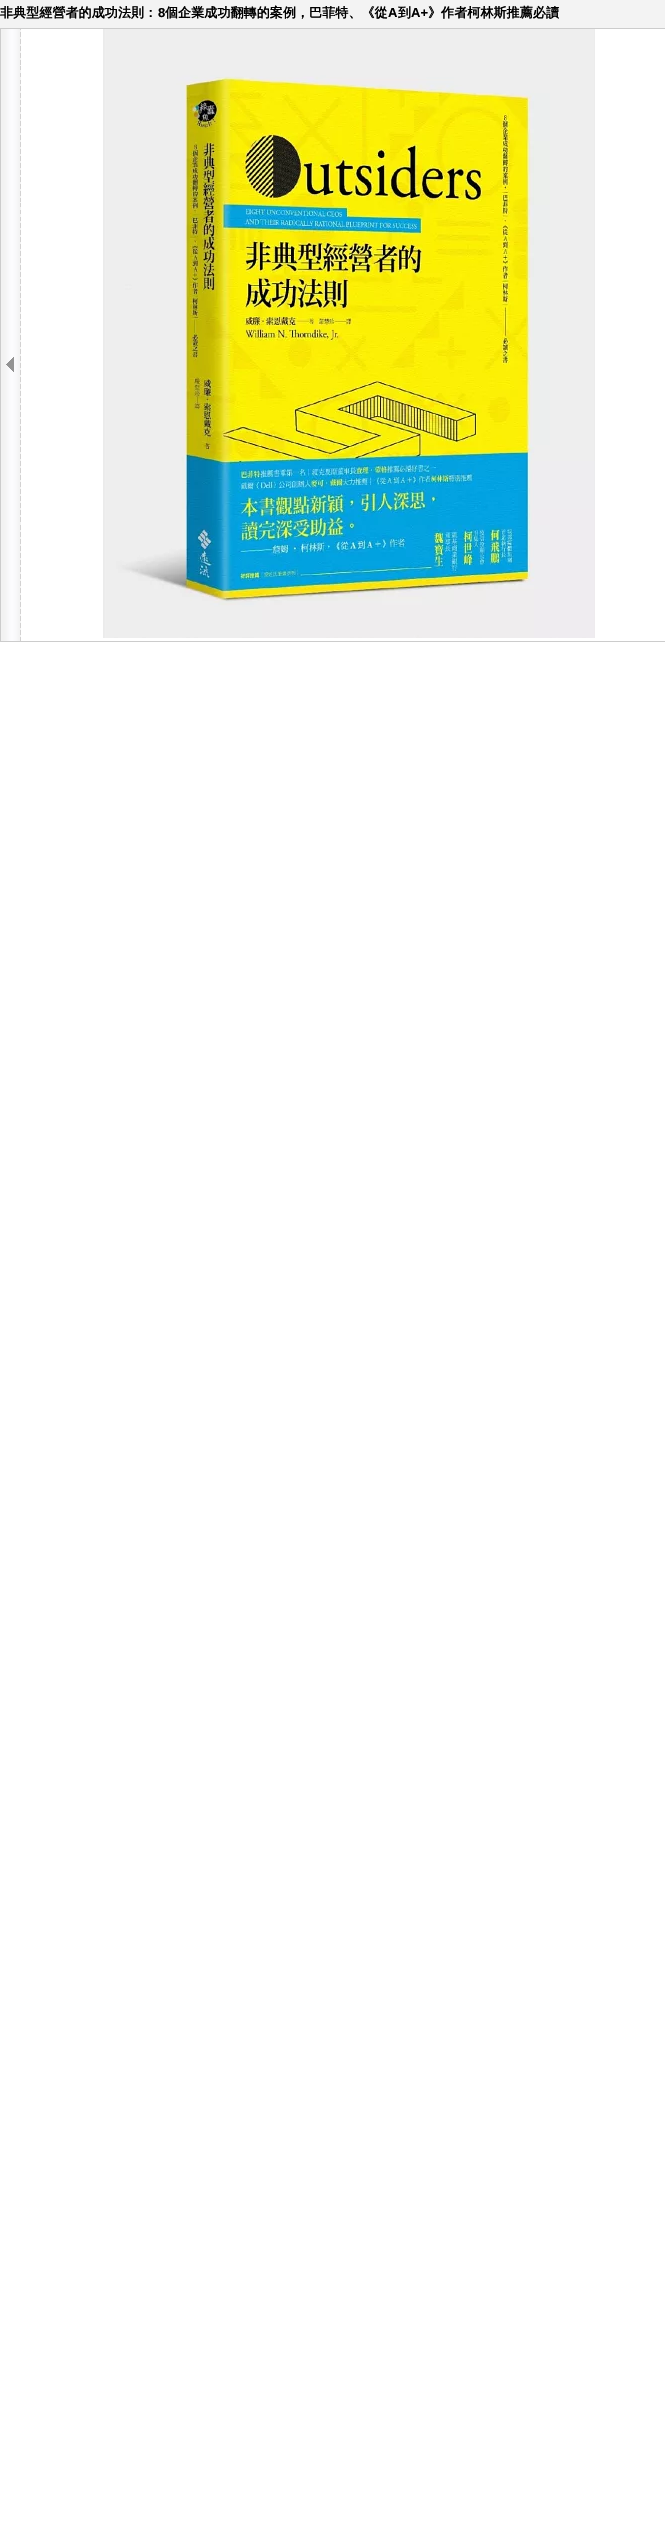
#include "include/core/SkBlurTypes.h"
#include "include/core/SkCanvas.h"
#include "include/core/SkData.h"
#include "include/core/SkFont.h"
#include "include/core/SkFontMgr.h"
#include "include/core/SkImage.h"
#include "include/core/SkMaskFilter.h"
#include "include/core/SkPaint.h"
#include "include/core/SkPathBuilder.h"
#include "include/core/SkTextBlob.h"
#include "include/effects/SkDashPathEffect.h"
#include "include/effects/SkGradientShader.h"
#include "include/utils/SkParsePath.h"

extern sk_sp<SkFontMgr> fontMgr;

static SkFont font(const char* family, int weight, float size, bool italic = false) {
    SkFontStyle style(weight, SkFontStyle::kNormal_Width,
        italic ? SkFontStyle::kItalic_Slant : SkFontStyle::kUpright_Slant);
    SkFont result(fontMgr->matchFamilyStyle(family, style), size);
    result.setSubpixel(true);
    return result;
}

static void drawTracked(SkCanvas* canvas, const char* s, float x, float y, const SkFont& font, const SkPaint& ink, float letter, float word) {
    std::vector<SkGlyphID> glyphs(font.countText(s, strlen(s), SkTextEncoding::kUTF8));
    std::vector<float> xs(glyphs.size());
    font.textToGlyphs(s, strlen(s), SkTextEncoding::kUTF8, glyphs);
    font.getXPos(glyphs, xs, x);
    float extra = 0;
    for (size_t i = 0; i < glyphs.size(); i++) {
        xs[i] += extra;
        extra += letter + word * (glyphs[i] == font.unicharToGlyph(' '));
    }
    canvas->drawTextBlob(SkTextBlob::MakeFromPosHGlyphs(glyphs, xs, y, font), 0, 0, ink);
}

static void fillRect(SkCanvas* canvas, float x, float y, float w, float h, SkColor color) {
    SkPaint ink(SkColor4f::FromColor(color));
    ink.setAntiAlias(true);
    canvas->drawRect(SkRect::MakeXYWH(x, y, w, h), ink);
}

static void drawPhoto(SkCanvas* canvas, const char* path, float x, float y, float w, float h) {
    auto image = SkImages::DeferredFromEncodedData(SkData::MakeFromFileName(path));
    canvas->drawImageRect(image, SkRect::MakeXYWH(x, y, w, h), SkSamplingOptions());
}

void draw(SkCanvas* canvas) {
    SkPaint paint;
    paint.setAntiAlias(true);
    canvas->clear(0xFFFFFFFF);
    fillRect(canvas, 0, 0, 665, 28, 0xFFF3F3F3);
    SkFont font1 = font("WenQuanYi Zen Hei", 700, 13);
    paint.setColor(0xFF000000);
    drawTracked(canvas, "非典型經營者的成功法則：", 0, 17, font1, paint, 0.1f, 0);
    SkFont font2 = font("Liberation Sans", 700, 13);
    drawTracked(canvas, "8", 158, 17, font2, paint, 0.1f, 0);
    drawTracked(canvas, "個企業成功翻轉的案例，巴菲特、《從", 165, 17, font1, paint, 0.1f, 0);
    drawTracked(canvas, "A", 388, 17, font2, paint, 0.1f, 0);
    drawTracked(canvas, "到", 398, 17, font1, paint, 0.1f, 0);
    drawTracked(canvas, "A+", 411, 17, font2, paint, 0.1f, 0);
    drawTracked(canvas, "》作者柯林斯推薦必讀", 428, 17, font1, paint, 0.1f, 0);
    paint.setStroke(true);
    paint.setStrokeWidth(1);
    paint.setColor(0xFFCCCCCC);
    canvas->drawRect(SkRect::MakeXYWH(0.5f, 28.5f, 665, 613), paint);
    drawPhoto(canvas, "assets/img1.png", 1, 29, 20, 612);
    drawPhoto(canvas, "assets/img2.png", 103, 29, 492, 609);
}
